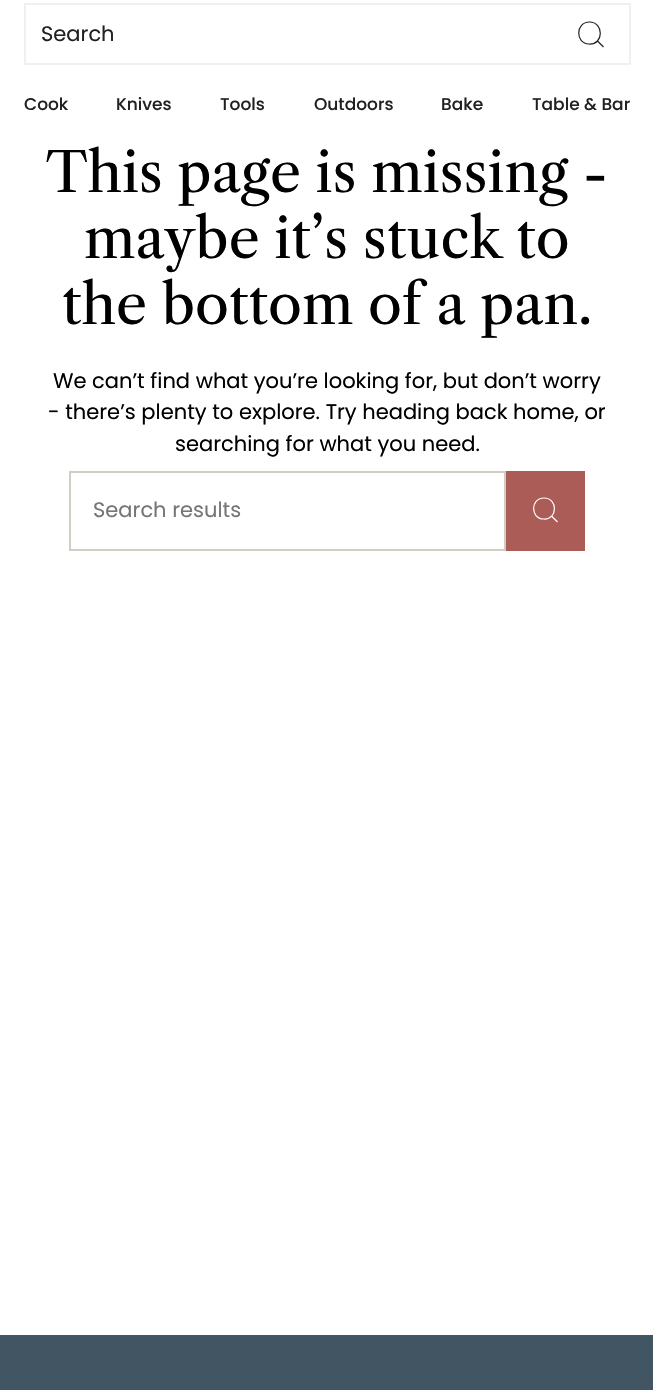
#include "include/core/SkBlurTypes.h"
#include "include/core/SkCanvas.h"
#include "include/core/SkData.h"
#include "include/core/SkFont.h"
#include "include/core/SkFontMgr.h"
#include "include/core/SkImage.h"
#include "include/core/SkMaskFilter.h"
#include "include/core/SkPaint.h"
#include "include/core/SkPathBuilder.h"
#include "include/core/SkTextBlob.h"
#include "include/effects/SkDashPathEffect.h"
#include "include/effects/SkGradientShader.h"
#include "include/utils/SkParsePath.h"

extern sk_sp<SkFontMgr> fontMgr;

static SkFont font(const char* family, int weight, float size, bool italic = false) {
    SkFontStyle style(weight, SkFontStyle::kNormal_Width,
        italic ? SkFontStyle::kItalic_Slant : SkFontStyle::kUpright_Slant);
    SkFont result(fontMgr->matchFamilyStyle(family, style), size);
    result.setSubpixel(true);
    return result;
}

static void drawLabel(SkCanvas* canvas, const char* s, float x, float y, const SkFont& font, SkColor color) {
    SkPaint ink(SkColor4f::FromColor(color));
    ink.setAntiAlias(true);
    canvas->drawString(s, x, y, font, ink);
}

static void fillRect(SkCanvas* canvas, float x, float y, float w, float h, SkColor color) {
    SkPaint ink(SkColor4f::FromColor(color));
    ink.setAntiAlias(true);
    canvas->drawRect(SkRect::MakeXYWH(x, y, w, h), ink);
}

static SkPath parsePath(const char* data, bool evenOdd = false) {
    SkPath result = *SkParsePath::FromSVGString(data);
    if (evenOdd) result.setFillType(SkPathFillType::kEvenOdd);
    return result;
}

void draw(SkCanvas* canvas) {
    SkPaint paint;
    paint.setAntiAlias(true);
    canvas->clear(0xFFFFFFFF);
    fillRect(canvas, 24, 3, 606, 2, 0xFFF0F0F0);
    fillRect(canvas, 24, 63, 530, 2, 0xFFF0F0F0);
    fillRect(canvas, 24, 3, 2, 62, 0xFFF0F0F0);
    SkFont font1 = font("Poppins", 400, 21);
    drawLabel(canvas, "Search", 41, 41, font1, 0xFF212121);
    fillRect(canvas, 629, 3, 2, 62, 0xFFF0F0F0);
    fillRect(canvas, 554, 63, 76, 2, 0xFFF0F0F0);
    paint.setStroke(true);
    paint.setStrokeWidth(1.2f);
    paint.setColor(0xFF212121);
    canvas->drawPath(parsePath("M589.5 22C604 22 604 45 589 44C575 43.5 575.5 22 589.5 22ZM597.5 41L603.5 47"), paint);
    SkFont font2 = font("Poppins", 500, 17);
    drawLabel(canvas, "Cook", 24, 110, font2, 0xFF212121);
    drawLabel(canvas, "Knives", 116, 110, font2, 0xFF212121);
    drawLabel(canvas, "Tools", 220, 110, font2, 0xFF212121);
    drawLabel(canvas, "Outdoors", 314, 110, font2, 0xFF212121);
    drawLabel(canvas, "Bake", 441, 110, font2, 0xFF212121);
    drawLabel(canvas, "Table & Bar", 532, 110, font2, 0xFF212121);
    SkFont font3 = font("Libre Caslon Text", 400, 55.25f);
    drawLabel(canvas, "This page is missing -", 46, 192, font3, 0xFF000000);
    drawLabel(canvas, "maybe it’s stuck to", 84, 258, font3, 0xFF000000);
    drawLabel(canvas, "the bottom of a pan.", 62, 324, font3, 0xFF000000);
    drawLabel(canvas, "We can’t find what you’re looking for, but don’t worry", 53, 388, font1, 0xFF000000);
    drawLabel(canvas, "- there’s plenty to explore. Try heading back home, or", 48, 419, font1, 0xFF000000);
    drawLabel(canvas, "searching for what you need.", 175, 451, font1, 0xFF000000);
    paint.setStrokeWidth(2);
    paint.setColor(0xFFD1CDC4);
    canvas->drawRect(SkRect::MakeXYWH(70, 472, 435, 78), paint);
    drawLabel(canvas, "Search results", 93, 517, font1, 0xFF757575);
    fillRect(canvas, 506, 471, 79, 80, 0xFFAB5C57);
    paint.setStrokeWidth(1.2f);
    paint.setColor(0xFFFFFFFF);
    canvas->drawPath(parsePath("M544 498C558 498 558 520 543.5 519C530 518.5 530.5 498 544 498ZM551.5 516L557.5 522"), paint);
    fillRect(canvas, 0, 1335, 653, 55, 0xFF425563);
}
